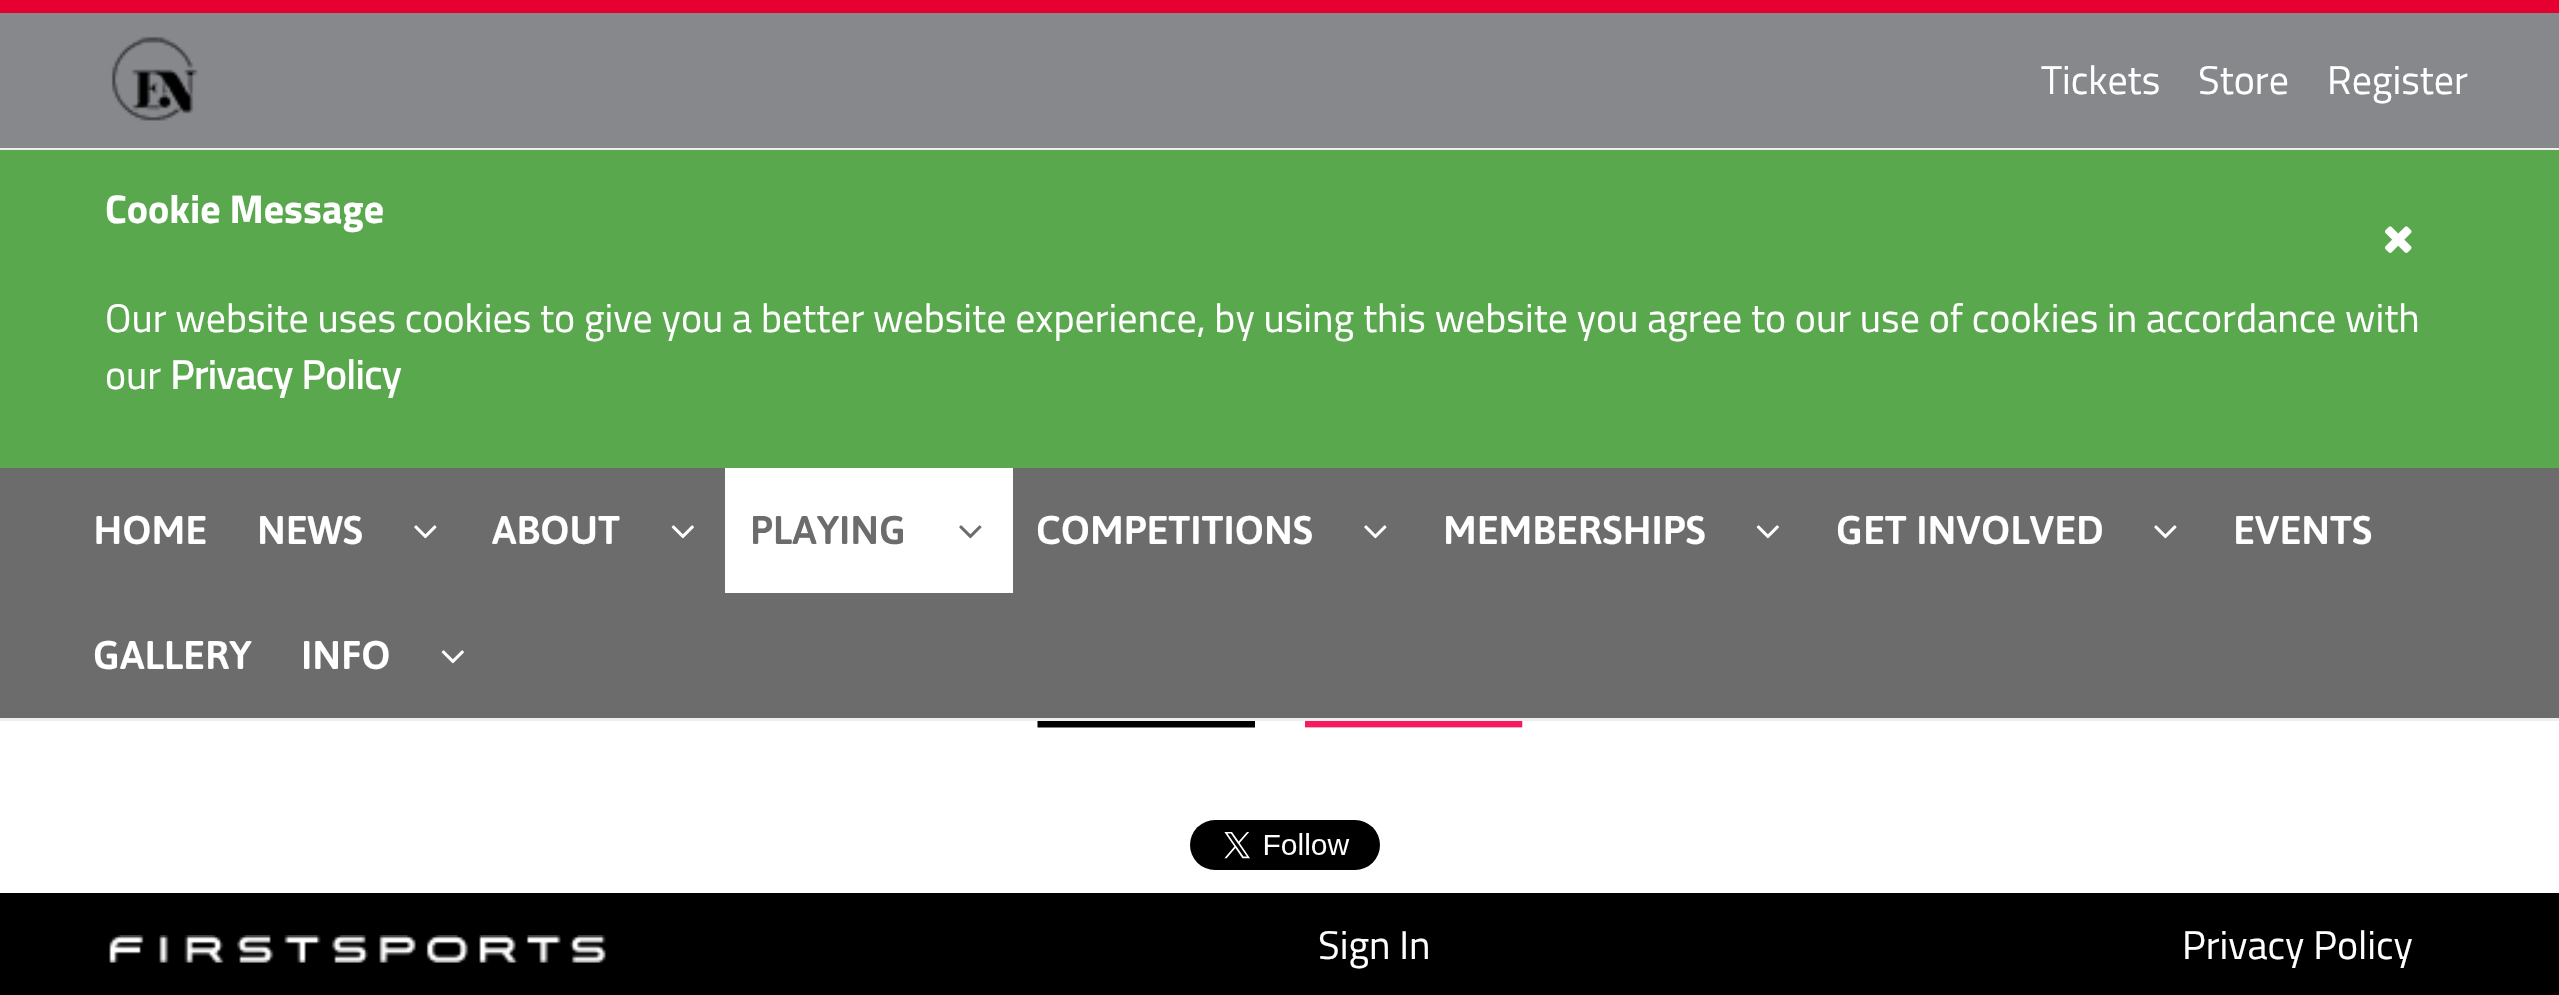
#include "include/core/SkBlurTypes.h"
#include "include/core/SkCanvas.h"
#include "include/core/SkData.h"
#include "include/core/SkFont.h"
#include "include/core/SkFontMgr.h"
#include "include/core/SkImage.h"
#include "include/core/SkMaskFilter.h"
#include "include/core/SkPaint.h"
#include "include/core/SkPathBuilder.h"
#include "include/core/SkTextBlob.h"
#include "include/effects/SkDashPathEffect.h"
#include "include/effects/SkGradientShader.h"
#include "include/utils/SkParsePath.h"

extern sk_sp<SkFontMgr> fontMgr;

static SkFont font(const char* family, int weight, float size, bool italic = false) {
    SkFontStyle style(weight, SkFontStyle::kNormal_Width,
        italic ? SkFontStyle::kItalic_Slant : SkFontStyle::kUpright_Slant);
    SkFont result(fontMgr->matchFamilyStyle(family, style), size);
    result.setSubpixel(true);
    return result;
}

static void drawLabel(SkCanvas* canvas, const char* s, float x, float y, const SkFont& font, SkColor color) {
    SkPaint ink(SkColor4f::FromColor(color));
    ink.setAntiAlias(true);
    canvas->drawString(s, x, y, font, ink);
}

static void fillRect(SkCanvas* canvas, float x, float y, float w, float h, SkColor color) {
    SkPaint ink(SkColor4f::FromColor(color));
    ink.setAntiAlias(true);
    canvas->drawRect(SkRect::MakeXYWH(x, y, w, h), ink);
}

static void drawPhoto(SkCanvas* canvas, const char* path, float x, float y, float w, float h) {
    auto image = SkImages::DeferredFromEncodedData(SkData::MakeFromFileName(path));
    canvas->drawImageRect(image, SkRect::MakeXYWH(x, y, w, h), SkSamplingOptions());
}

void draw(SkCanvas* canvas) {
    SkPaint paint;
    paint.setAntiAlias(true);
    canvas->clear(0xFFFFFFFF);
    fillRect(canvas, 0, 13, 2559, 135, 0xFF87888C);
    fillRect(canvas, 0, 0, 2559, 13, 0xFFE60031);
    fillRect(canvas, 0, 148, 2559, 2, 0xFFEEEEEE);
    drawPhoto(canvas, "assets/img1.png", 111, 36, 87, 85);
    SkFont font1 = font("Titillium Web", 400, 40);
    drawLabel(canvas, "Tickets", 2041, 94, font1, 0xFFFFFFFF);
    drawLabel(canvas, "Store", 2198, 94, font1, 0xFFFFFFFF);
    drawLabel(canvas, "Register", 2327, 94, font1, 0xFFFFFFFF);
    fillRect(canvas, 0, 150, 2559, 318, 0xFF5AA84E);
    SkFont font2 = font("Titillium Web", 700, 40);
    drawLabel(canvas, "Cookie Message", 105, 223, font2, 0xFFFFFFFF);
    drawPhoto(canvas, "assets/img2.png", 2385, 226, 27, 27);
    drawLabel(canvas, "Our website uses cookies to give you a better website experience, by using this website you agree to our use of cookies in accordance with", 105, 332, font1, 0xFFFFFFFF);
    drawLabel(canvas, "our", 105, 389, font1, 0xFFFFFFFF);
    SkFont font3 = font("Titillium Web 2", 700, 40);
    drawLabel(canvas, "Privacy Policy", 170, 389, font3, 0xFFFFFFFF);
    fillRect(canvas, 0, 468, 2559, 250, 0xFF6C6C6C);
    fillRect(canvas, 0, 718, 2559, 3, 0xFFEEEEEE);
    SkFont font4 = font("Asap", 500, 40);
    drawLabel(canvas, "HOME", 93, 544, font4, 0xFFFFFFFF);
    drawLabel(canvas, "NEWS", 257, 544, font4, 0xFFFFFFFF);
    drawPhoto(canvas, "assets/img3.png", 414, 525, 23, 14);
    drawLabel(canvas, "ABOUT", 492, 544, font4, 0xFFFFFFFF);
    drawPhoto(canvas, "assets/img4.png", 671, 525, 23, 14);
    fillRect(canvas, 725, 468, 288, 125, 0xFFFFFFFF);
    drawLabel(canvas, "PLAYING", 750, 544, font4, 0xFF6C6C6C);
    drawPhoto(canvas, "assets/img5.png", 959, 525, 23, 14);
    drawLabel(canvas, "COMPETITIONS", 1036, 544, font4, 0xFFFFFFFF);
    drawPhoto(canvas, "assets/img3.png", 1364, 525, 23, 14);
    drawLabel(canvas, "MEMBERSHIPS", 1443, 544, font4, 0xFFFFFFFF);
    drawPhoto(canvas, "assets/img4.png", 1756, 525, 23, 14);
    drawLabel(canvas, "GET INVOLVED", 1836, 544, font4, 0xFFFFFFFF);
    drawPhoto(canvas, "assets/img3.png", 2154, 525, 23, 14);
    drawLabel(canvas, "EVENTS", 2233, 544, font4, 0xFFFFFFFF);
    drawLabel(canvas, "GALLERY", 93, 669, font4, 0xFFFFFFFF);
    drawLabel(canvas, "INFO", 301, 669, font4, 0xFFFFFFFF);
    drawPhoto(canvas, "assets/img4.png", 441, 650, 23, 14);
    drawPhoto(canvas, "assets/img6.png", 1037, 721, 218, 7);
    drawPhoto(canvas, "assets/img7.png", 1305, 721, 218, 7);
    drawPhoto(canvas, "assets/img8.png", 1190, 820, 190, 50);
    fillRect(canvas, 0, 893, 2559, 102, 0xFF000000);
    drawPhoto(canvas, "assets/img9.png", 109, 935, 497, 28);
    drawLabel(canvas, "Sign In", 1318, 959, font1, 0xFFFFFFFF);
    drawLabel(canvas, "Privacy Policy", 2182, 959, font1, 0xFFFFFFFF);
}
